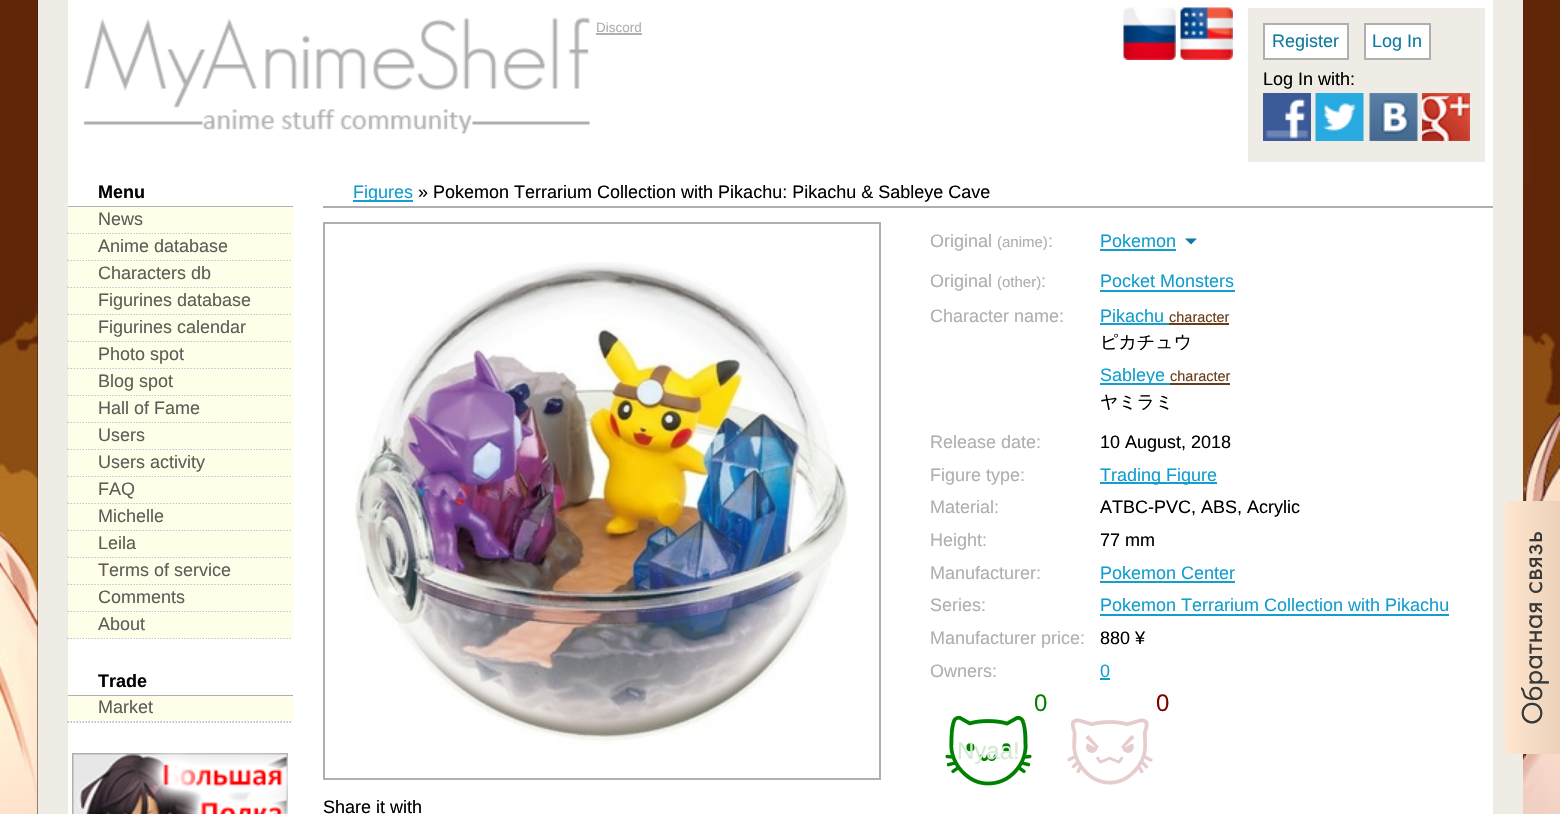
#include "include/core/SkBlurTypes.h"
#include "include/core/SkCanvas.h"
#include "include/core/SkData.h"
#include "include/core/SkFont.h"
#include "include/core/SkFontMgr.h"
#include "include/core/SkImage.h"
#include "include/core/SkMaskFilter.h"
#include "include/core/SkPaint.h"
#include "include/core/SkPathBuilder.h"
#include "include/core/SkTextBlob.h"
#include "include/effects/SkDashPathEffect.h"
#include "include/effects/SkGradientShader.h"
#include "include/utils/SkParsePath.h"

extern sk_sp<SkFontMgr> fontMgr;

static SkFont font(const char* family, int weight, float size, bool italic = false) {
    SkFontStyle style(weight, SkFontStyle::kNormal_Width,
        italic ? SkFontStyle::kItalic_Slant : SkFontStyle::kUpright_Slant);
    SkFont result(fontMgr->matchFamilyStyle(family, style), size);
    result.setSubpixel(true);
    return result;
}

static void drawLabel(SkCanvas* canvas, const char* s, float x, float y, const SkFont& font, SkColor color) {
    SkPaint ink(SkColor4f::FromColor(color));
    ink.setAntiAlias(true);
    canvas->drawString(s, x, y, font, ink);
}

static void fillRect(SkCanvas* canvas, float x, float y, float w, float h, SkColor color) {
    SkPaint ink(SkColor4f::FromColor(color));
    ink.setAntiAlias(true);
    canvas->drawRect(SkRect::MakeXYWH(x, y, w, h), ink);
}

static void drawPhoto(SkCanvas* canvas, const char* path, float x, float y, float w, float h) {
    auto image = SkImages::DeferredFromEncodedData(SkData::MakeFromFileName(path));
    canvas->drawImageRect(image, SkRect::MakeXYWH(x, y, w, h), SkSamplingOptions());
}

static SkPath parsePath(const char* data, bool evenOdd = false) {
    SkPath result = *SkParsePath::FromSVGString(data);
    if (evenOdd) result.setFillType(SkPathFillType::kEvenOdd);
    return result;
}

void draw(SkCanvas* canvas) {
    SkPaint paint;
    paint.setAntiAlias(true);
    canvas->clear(0xFFFFFFFF);
    drawPhoto(canvas, "assets/img1.png", 0, 0, 1560, 814);
    fillRect(canvas, 38, 0, 1485, 814, 0xFFEEECE5);
    fillRect(canvas, 68, 0, 1425, 814, 0xFFFFFFFF);
    drawPhoto(canvas, "assets/img2.png", 84, 17, 506, 117);
    SkFont font1 = font("Liberation Sans", 400, 13.5f);
    drawLabel(canvas, "Discord", 596, 32, font1, 0xFFAFAFAF);
    fillRect(canvas, 596, 33, 46, 2, 0xFFAFAFAF);
    drawPhoto(canvas, "assets/img3.png", 1123, 7, 53, 53);
    drawPhoto(canvas, "assets/img4.png", 1180, 7, 53, 53);
    fillRect(canvas, 1248, 8, 237, 154, 0xFFEEECE5);
    paint.setColor(0xFFFFFFFF);
    canvas->drawRect(SkRect::MakeXYWH(1264, 24, 84, 35), paint);
    paint.setStroke(true);
    paint.setStrokeWidth(2);
    paint.setColor(0xFFAFAFAF);
    canvas->drawRect(SkRect::MakeXYWH(1264, 24, 84, 35), paint);
    SkFont font2 = font("Liberation Sans", 400, 18);
    drawLabel(canvas, "Register", 1272, 47, font2, 0xFF0E7B9E);
    paint.setStroke(false);
    paint.setColor(0xFFFFFFFF);
    canvas->drawRect(SkRect::MakeXYWH(1365, 24, 65, 35), paint);
    paint.setStroke(true);
    paint.setColor(0xFFAFAFAF);
    canvas->drawRect(SkRect::MakeXYWH(1365, 24, 65, 35), paint);
    drawLabel(canvas, "Log In", 1372, 47, font2, 0xFF0E7B9E);
    drawLabel(canvas, "Log In with:", 1263, 85, font2, 0xFF000000);
    drawPhoto(canvas, "assets/img5.png", 1263, 93, 48, 48);
    drawPhoto(canvas, "assets/img6.png", 1315, 93, 49, 48);
    drawPhoto(canvas, "assets/img7.png", 1369, 93, 49, 48);
    drawPhoto(canvas, "assets/img8.png", 1422, 93, 48, 48);
    fillRect(canvas, 68, 206, 225, 1, 0xFFAFAFAF);
    SkFont font3 = font("Liberation Sans", 700, 18);
    drawLabel(canvas, "Menu", 98, 198, font3, 0xFF000000);
    paint.setStrokeWidth(1.5f);
    paint.setPathEffect(SkDashPathEffect::Make({{1.5f, 1.5f}}, 0));
    canvas->drawPath(parsePath("M67.5 233H292.5"), paint);
    paint.setPathEffect(nullptr);
    fillRect(canvas, 68, 207, 225, 26, 0xFFFFFEE9);
    drawLabel(canvas, "News", 98, 225, font2, 0xFF605C59);
    paint.setPathEffect(SkDashPathEffect::Make({{1.5f, 1.5f}}, 0));
    canvas->drawPath(parsePath("M67.5 260H292.5"), paint);
    paint.setPathEffect(nullptr);
    fillRect(canvas, 68, 234, 225, 26, 0xFFFFFEE9);
    drawLabel(canvas, "Anime database", 98, 252, font2, 0xFF605C59);
    paint.setPathEffect(SkDashPathEffect::Make({{1.5f, 1.5f}}, 0));
    canvas->drawPath(parsePath("M67.5 287H292.5"), paint);
    paint.setPathEffect(nullptr);
    fillRect(canvas, 68, 261, 225, 26, 0xFFFFFEE9);
    drawLabel(canvas, "Characters db", 98, 279, font2, 0xFF605C59);
    paint.setPathEffect(SkDashPathEffect::Make({{1.5f, 1.5f}}, 0));
    canvas->drawPath(parsePath("M67.5 314H292.5"), paint);
    paint.setPathEffect(nullptr);
    fillRect(canvas, 68, 288, 225, 26, 0xFFFFFEE9);
    drawLabel(canvas, "Figurines database", 98, 306, font2, 0xFF605C59);
    paint.setPathEffect(SkDashPathEffect::Make({{1.5f, 1.5f}}, 0));
    canvas->drawPath(parsePath("M67.5 341H292.5"), paint);
    paint.setPathEffect(nullptr);
    fillRect(canvas, 68, 315, 225, 26, 0xFFFFFEE9);
    drawLabel(canvas, "Figurines calendar", 98, 333, font2, 0xFF605C59);
    paint.setPathEffect(SkDashPathEffect::Make({{1.5f, 1.5f}}, 0));
    canvas->drawPath(parsePath("M67.5 368H292.5"), paint);
    paint.setPathEffect(nullptr);
    fillRect(canvas, 68, 342, 225, 26, 0xFFFFFEE9);
    drawLabel(canvas, "Photo spot", 98, 360, font2, 0xFF605C59);
    paint.setPathEffect(SkDashPathEffect::Make({{1.5f, 1.5f}}, 0));
    canvas->drawPath(parsePath("M67.5 395H292.5"), paint);
    paint.setPathEffect(nullptr);
    fillRect(canvas, 68, 369, 225, 26, 0xFFFFFEE9);
    drawLabel(canvas, "Blog spot", 98, 387, font2, 0xFF605C59);
    paint.setPathEffect(SkDashPathEffect::Make({{1.5f, 1.5f}}, 0));
    canvas->drawPath(parsePath("M67.5 422H292.5"), paint);
    paint.setPathEffect(nullptr);
    fillRect(canvas, 68, 396, 225, 26, 0xFFFFFEE9);
    drawLabel(canvas, "Hall of Fame", 98, 414, font2, 0xFF605C59);
    paint.setPathEffect(SkDashPathEffect::Make({{1.5f, 1.5f}}, 0));
    canvas->drawPath(parsePath("M67.5 449H292.5"), paint);
    paint.setPathEffect(nullptr);
    fillRect(canvas, 68, 423, 225, 26, 0xFFFFFEE9);
    drawLabel(canvas, "Users", 98, 441, font2, 0xFF605C59);
    paint.setPathEffect(SkDashPathEffect::Make({{1.5f, 1.5f}}, 0));
    canvas->drawPath(parsePath("M67.5 476H292.5"), paint);
    paint.setPathEffect(nullptr);
    fillRect(canvas, 68, 450, 225, 26, 0xFFFFFEE9);
    drawLabel(canvas, "Users activity", 98, 468, font2, 0xFF605C59);
    paint.setPathEffect(SkDashPathEffect::Make({{1.5f, 1.5f}}, 0));
    canvas->drawPath(parsePath("M67.5 503H292.5"), paint);
    paint.setPathEffect(nullptr);
    fillRect(canvas, 68, 477, 225, 26, 0xFFFFFEE9);
    drawLabel(canvas, "FAQ", 98, 495, font2, 0xFF605C59);
    paint.setPathEffect(SkDashPathEffect::Make({{1.5f, 1.5f}}, 0));
    canvas->drawPath(parsePath("M67.5 530H292.5"), paint);
    paint.setPathEffect(nullptr);
    fillRect(canvas, 68, 504, 225, 26, 0xFFFFFEE9);
    drawLabel(canvas, "Michelle", 98, 522, font2, 0xFF605C59);
    paint.setPathEffect(SkDashPathEffect::Make({{1.5f, 1.5f}}, 0));
    canvas->drawPath(parsePath("M67.5 557H292.5"), paint);
    paint.setPathEffect(nullptr);
    fillRect(canvas, 68, 531, 225, 26, 0xFFFFFEE9);
    drawLabel(canvas, "Leila", 98, 549, font2, 0xFF605C59);
    paint.setPathEffect(SkDashPathEffect::Make({{1.5f, 1.5f}}, 0));
    canvas->drawPath(parsePath("M67.5 584H292.5"), paint);
    paint.setPathEffect(nullptr);
    fillRect(canvas, 68, 558, 225, 26, 0xFFFFFEE9);
    drawLabel(canvas, "Terms of service", 98, 576, font2, 0xFF605C59);
    paint.setPathEffect(SkDashPathEffect::Make({{1.5f, 1.5f}}, 0));
    canvas->drawPath(parsePath("M67.5 611H292.5"), paint);
    paint.setPathEffect(nullptr);
    fillRect(canvas, 68, 585, 225, 26, 0xFFFFFEE9);
    drawLabel(canvas, "Comments", 98, 603, font2, 0xFF605C59);
    paint.setPathEffect(SkDashPathEffect::Make({{1.5f, 1.5f}}, 0));
    canvas->drawPath(parsePath("M67.5 638H292.5"), paint);
    paint.setPathEffect(nullptr);
    fillRect(canvas, 68, 612, 225, 26, 0xFFFFFEE9);
    drawLabel(canvas, "About", 98, 630, font2, 0xFF605C59);
    fillRect(canvas, 68, 695, 225, 1, 0xFFAFAFAF);
    drawLabel(canvas, "Trade", 98, 687, font3, 0xFF000000);
    paint.setPathEffect(SkDashPathEffect::Make({{1.5f, 1.5f}}, 0));
    canvas->drawPath(parsePath("M67.5 722H292.5"), paint);
    paint.setPathEffect(nullptr);
    fillRect(canvas, 68, 696, 225, 24, 0xFFFFFEE9);
    drawLabel(canvas, "Market", 98, 713, font2, 0xFF605C59);
    drawPhoto(canvas, "assets/img9.png", 72, 753, 216, 61);
    fillRect(canvas, 323, 206, 1170, 2, 0xFFAFAFAF);
    fillRect(canvas, 353, 200, 60, 2, 0xFF139ECD);
    drawLabel(canvas, "Figures", 353, 198, font2, 0xFF139ECD);
    drawLabel(canvas, "» Pokemon Terrarium Collection with Pikachu: Pikachu & Sableye Cave", 418, 198, font2, 0xFF000000);
    drawLabel(canvas, "Original", 930, 247, font2, 0xFFAFAFAF);
    SkFont font4 = font("Liberation Sans", 400, 15);
    drawLabel(canvas, "(anime)", 997, 247, font4, 0xFFAFAFAF);
    drawLabel(canvas, ":", 1048, 247, font2, 0xFFAFAFAF);
    drawLabel(canvas, "Pokemon", 1100, 247, font2, 0xFF139ECD);
    fillRect(canvas, 1100, 249, 76, 2, 0xFF139ECD);
    paint.setStroke(false);
    paint.setColor(0xFF0E7B9E);
    canvas->drawPath(parsePath("M1185 238.5H1197L1191 244.5Z"), paint);
    drawLabel(canvas, "Original", 930, 287, font2, 0xFFAFAFAF);
    drawLabel(canvas, "(other)", 997, 287, font4, 0xFFAFAFAF);
    drawLabel(canvas, ":", 1041, 287, font2, 0xFFAFAFAF);
    drawLabel(canvas, "Pocket Monsters", 1100, 287, font2, 0xFF139ECD);
    fillRect(canvas, 1100, 290, 135, 2, 0xFF139ECD);
    drawLabel(canvas, "Character name:", 930, 322, font2, 0xFFAFAFAF);
    drawLabel(canvas, "Pikachu", 1100, 322, font2, 0xFF139ECD);
    fillRect(canvas, 1100, 323, 69, 2, 0xFF139ECD);
    SkFont font5 = font("Liberation Sans", 400, 14.5f);
    drawLabel(canvas, "character", 1169, 322, font5, 0xFF673C19);
    fillRect(canvas, 1169, 323, 60, 2, 0xFF673C19);
    SkFont font6 = font("WenQuanYi Zen Hei", 500, 18);
    drawLabel(canvas, "ピカチュウ", 1100, 348, font6, 0xFF000000);
    fillRect(canvas, 1100, 383, 70, 2, 0xFF139ECD);
    drawLabel(canvas, "Sableye", 1100, 381, font2, 0xFF139ECD);
    drawLabel(canvas, "character", 1170, 381, font5, 0xFF673C19);
    fillRect(canvas, 1170, 383, 60, 2, 0xFF673C19);
    drawLabel(canvas, "ヤミラミ", 1100, 408, font6, 0xFF000000);
    drawLabel(canvas, "Release date:", 930, 448, font2, 0xFFAFAFAF);
    drawLabel(canvas, "10 August, 2018", 1100, 448, font2, 0xFF000000);
    drawLabel(canvas, "Figure type:", 930, 481, font2, 0xFFAFAFAF);
    fillRect(canvas, 1100, 482, 117, 2, 0xFF139ECD);
    drawLabel(canvas, "Trading Figure", 1100, 481, font2, 0xFF139ECD);
    drawLabel(canvas, "Material:", 930, 513, font2, 0xFFAFAFAF);
    drawLabel(canvas, "ATBC-PVC, ABS, Acrylic", 1100, 513, font2, 0xFF000000);
    drawLabel(canvas, "Height:", 930, 546, font2, 0xFFAFAFAF);
    drawLabel(canvas, "77 mm", 1100, 546, font2, 0xFF000000);
    drawLabel(canvas, "Manufacturer:", 930, 579, font2, 0xFFAFAFAF);
    drawLabel(canvas, "Pokemon Center", 1100, 579, font2, 0xFF139ECD);
    fillRect(canvas, 1100, 581, 135, 2, 0xFF139ECD);
    drawLabel(canvas, "Series:", 930, 611, font2, 0xFFAFAFAF);
    drawLabel(canvas, "Pokemon Terrarium Collection with Pikachu", 1100, 611, font2, 0xFF139ECD);
    fillRect(canvas, 1100, 614, 349, 2, 0xFF139ECD);
    drawLabel(canvas, "Manufacturer price:", 930, 644, font2, 0xFFAFAFAF);
    drawLabel(canvas, "880 ¥", 1100, 644, font2, 0xFF000000);
    drawLabel(canvas, "Owners:", 930, 677, font2, 0xFFAFAFAF);
    drawLabel(canvas, "0", 1100, 677, font2, 0xFF139ECD);
    fillRect(canvas, 1100, 678, 10, 2, 0xFF139ECD);
    SkFont font7 = font("Liberation Sans", 400, 24);
    drawLabel(canvas, "0", 1034, 711, font7, 0xFF008000);
    drawPhoto(canvas, "assets/img10.png", 945, 715, 87, 71);
    drawLabel(canvas, "Nyaa!", 957, 759, font7, 0xFFD3E9D3);
    drawLabel(canvas, "0", 1156, 711, font7, 0xFF800000);
    drawPhoto(canvas, "assets/img11.png", 1067, 718, 86, 67);
    paint.setStroke(true);
    paint.setStrokeWidth(2);
    paint.setColor(0xFFAFAFAF);
    canvas->drawRect(SkRect::MakeXYWH(324, 223, 556, 556), paint);
    drawPhoto(canvas, "assets/img12.png", 354, 262, 494, 482);
    drawLabel(canvas, "Share it with", 323, 813, font2, 0xFF000000);
    paint.setStroke(false);
    {
        const SkColor colors[] = {0xFFFFE6CF, 0xFFEBD1B9};
        const float stops[] = {0, 1};
        const SkPoint ends[] = {{1505, 628}, {1560, 628}};
        paint.setShader(SkGradientShader::MakeLinear(ends, colors, stops, 2, SkTileMode::kClamp));
        paint.setAlpha(255);
    }
    canvas->drawPath(parsePath("M1505 747V508C1505 504 1508 501 1512 501H1560V754H1512C1508 754 1505 751 1505 747Z"), paint);
    SkFont font8 = font("Futura PT", 400, 30);
    canvas->save();
    canvas->rotate(-90, 1542, 725);
    drawLabel(canvas, "Обратная связь", 1542, 725, font8, 0xFF383838);
    canvas->restore();
}
